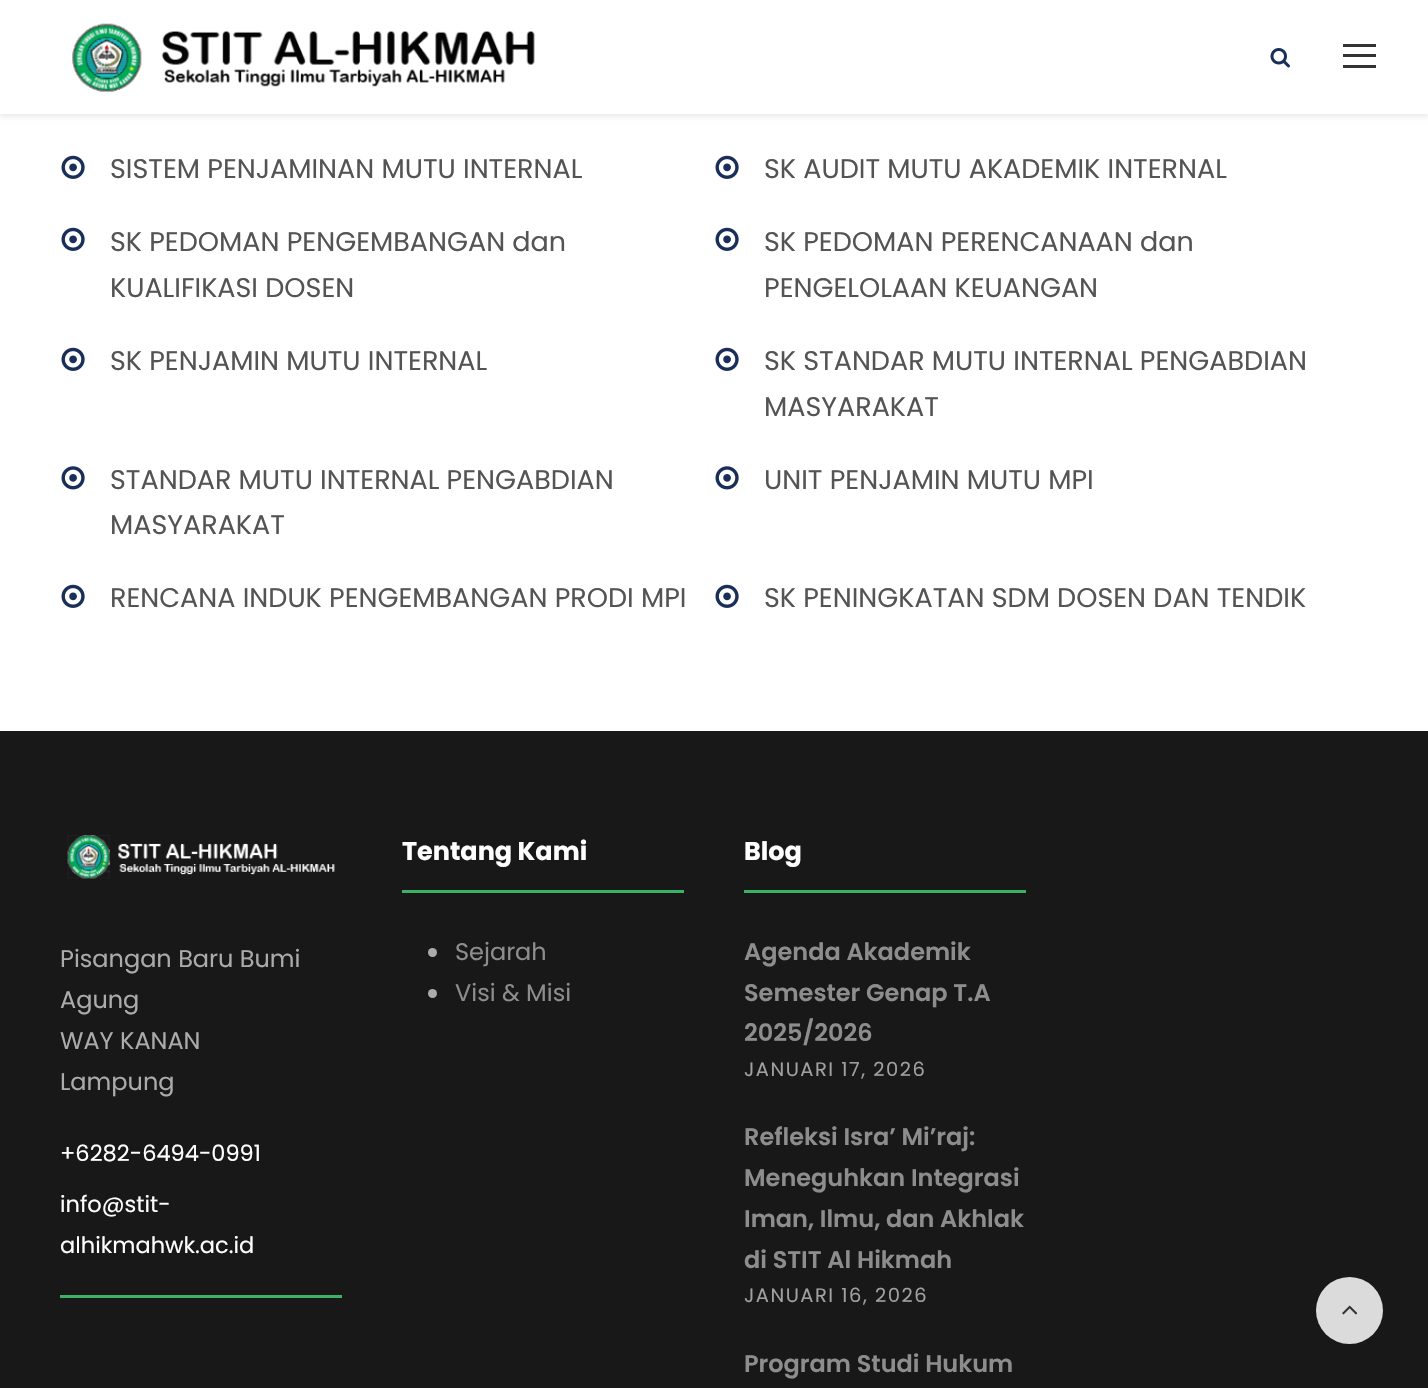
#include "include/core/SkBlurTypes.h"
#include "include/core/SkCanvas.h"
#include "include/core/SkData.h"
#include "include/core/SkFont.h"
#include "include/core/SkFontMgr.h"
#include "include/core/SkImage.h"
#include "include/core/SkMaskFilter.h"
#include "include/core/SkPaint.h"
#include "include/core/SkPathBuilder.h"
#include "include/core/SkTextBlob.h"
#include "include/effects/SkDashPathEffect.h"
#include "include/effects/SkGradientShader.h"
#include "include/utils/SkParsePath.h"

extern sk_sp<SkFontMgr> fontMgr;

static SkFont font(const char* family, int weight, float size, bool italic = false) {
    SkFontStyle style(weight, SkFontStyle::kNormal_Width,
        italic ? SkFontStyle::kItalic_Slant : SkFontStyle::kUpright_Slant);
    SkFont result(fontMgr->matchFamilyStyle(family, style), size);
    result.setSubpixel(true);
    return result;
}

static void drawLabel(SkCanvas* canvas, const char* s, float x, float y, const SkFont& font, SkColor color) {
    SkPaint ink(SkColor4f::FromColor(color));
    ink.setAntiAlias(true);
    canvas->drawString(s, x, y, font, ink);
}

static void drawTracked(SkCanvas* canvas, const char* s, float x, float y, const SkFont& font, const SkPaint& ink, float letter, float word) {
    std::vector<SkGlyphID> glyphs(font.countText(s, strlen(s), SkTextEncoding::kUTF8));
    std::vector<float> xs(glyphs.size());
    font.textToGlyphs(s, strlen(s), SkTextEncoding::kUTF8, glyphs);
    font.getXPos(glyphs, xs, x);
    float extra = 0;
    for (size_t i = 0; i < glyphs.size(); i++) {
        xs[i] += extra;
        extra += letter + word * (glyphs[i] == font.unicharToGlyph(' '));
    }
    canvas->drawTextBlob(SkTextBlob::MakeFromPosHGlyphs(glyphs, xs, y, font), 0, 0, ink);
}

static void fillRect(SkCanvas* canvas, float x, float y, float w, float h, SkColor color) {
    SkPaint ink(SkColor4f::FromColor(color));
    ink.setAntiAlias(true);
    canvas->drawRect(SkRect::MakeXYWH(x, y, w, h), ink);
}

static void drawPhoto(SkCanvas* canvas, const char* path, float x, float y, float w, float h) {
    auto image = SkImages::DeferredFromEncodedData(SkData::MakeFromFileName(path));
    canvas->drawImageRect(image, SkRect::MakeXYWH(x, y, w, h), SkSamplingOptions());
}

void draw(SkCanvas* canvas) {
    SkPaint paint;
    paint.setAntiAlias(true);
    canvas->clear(0xFFFFFFFF);
    paint.setColor(0x1A000000);
    paint.setMaskFilter(SkMaskFilter::MakeBlur(kNormal_SkBlurStyle, 3));
    canvas->drawRect(SkRect::MakeXYWH(0, 2, 1428, 114), paint);
    paint.setMaskFilter(nullptr);
    fillRect(canvas, 0, 0, 1428, 114, 0xFFFFFFFF);
    drawPhoto(canvas, "assets/img1.png", 72, 23, 463, 69);
    drawPhoto(canvas, "assets/img2.png", 1270, 48, 20, 20);
    fillRect(canvas, 1343, 44, 33, 3, 0xFF333333);
    fillRect(canvas, 1343, 54, 33, 3, 0xFF333333);
    fillRect(canvas, 1343, 65, 33, 3, 0xFF333333);
    drawPhoto(canvas, "assets/img3.png", 61, 155, 24, 24);
    SkFont font1 = font("Poppins", 400, 27);
    drawLabel(canvas, "SISTEM PENJAMINAN MUTU INTERNAL", 110, 178, font1, 0xFF545454);
    drawPhoto(canvas, "assets/img3.png", 715, 155, 24, 24);
    drawLabel(canvas, "SK AUDIT MUTU AKADEMIK INTERNAL", 764, 178, font1, 0xFF545454);
    drawPhoto(canvas, "assets/img3.png", 61, 227, 24, 24);
    drawLabel(canvas, "SK PEDOMAN PENGEMBANGAN dan", 110, 251, font1, 0xFF545454);
    drawLabel(canvas, "KUALIFIKASI DOSEN", 110, 297, font1, 0xFF545454);
    drawPhoto(canvas, "assets/img3.png", 715, 227, 24, 24);
    drawLabel(canvas, "SK PEDOMAN PERENCANAAN dan", 764, 251, font1, 0xFF545454);
    drawLabel(canvas, "PENGELOLAAN KEUANGAN", 764, 297, font1, 0xFF545454);
    drawPhoto(canvas, "assets/img3.png", 61, 347, 24, 24);
    drawLabel(canvas, "SK PENJAMIN MUTU INTERNAL", 110, 370, font1, 0xFF545454);
    drawPhoto(canvas, "assets/img3.png", 715, 347, 24, 24);
    drawLabel(canvas, "SK STANDAR MUTU INTERNAL PENGABDIAN", 764, 370, font1, 0xFF545454);
    drawLabel(canvas, "MASYARAKAT", 764, 416, font1, 0xFF545454);
    drawPhoto(canvas, "assets/img4.png", 61, 466, 24, 24);
    drawLabel(canvas, "STANDAR MUTU INTERNAL PENGABDIAN", 110, 489, font1, 0xFF545454);
    drawLabel(canvas, "MASYARAKAT", 110, 534, font1, 0xFF545454);
    drawPhoto(canvas, "assets/img4.png", 715, 466, 24, 24);
    drawLabel(canvas, "UNIT PENJAMIN MUTU MPI", 764, 489, font1, 0xFF545454);
    drawPhoto(canvas, "assets/img3.png", 61, 584, 24, 24);
    drawLabel(canvas, "RENCANA INDUK PENGEMBANGAN PRODI MPI", 110, 607, font1, 0xFF545454);
    drawPhoto(canvas, "assets/img3.png", 715, 584, 24, 24);
    drawLabel(canvas, "SK PENINGKATAN SDM DOSEN DAN TENDIK", 764, 607, font1, 0xFF545454);
    fillRect(canvas, 0, 731, 1428, 657, 0xFF181818);
    drawPhoto(canvas, "assets/img5.png", 67, 835, 268, 44);
    SkFont font2 = font("Poppins", 400, 24);
    drawLabel(canvas, "Pisangan Baru Bumi", 60, 967, font2, 0xFFABABAB);
    drawLabel(canvas, "Agung", 60, 1008, font2, 0xFFABABAB);
    drawLabel(canvas, "WAY KANAN", 60, 1049, font2, 0xFFABABAB);
    drawLabel(canvas, "Lampung", 60, 1090, font2, 0xFFABABAB);
    SkFont font3 = font("Poppins", 400, 22.5f);
    drawLabel(canvas, "+6282-6494-0991", 60, 1161, font3, 0xFFFFFFFF);
    drawLabel(canvas, "info@stit-", 60, 1212, font3, 0xFFFFFFFF);
    drawLabel(canvas, "alhikmahwk.ac.id", 60, 1253, font3, 0xFFFFFFFF);
    fillRect(canvas, 60, 1295, 282, 3, 0xFF3DB166);
    fillRect(canvas, 402, 890, 282, 3, 0xFF3DB166);
    SkFont font4 = font("Poppins", 700, 25.5f);
    drawLabel(canvas, "Tentang Kami", 402, 860, font4, 0xFFFFFFFF);
    paint.setColor(0xFFABABAB);
    canvas->drawCircle(432.5f, 952.5f, 4.5f, paint);
    drawLabel(canvas, "Sejarah", 455, 960, font2, 0xFF8D8D8D);
    canvas->drawCircle(432.5f, 993.5f, 4.5f, paint);
    drawLabel(canvas, "Visi & Misi", 455, 1001, font2, 0xFF8D8D8D);
    fillRect(canvas, 744, 890, 282, 3, 0xFF3DB166);
    drawLabel(canvas, "Blog", 744, 860, font4, 0xFFFFFFFF);
    SkFont font5 = font("Poppins", 600, 24);
    drawLabel(canvas, "Agenda Akademik", 744, 960, font5, 0xFF8D8D8D);
    drawLabel(canvas, "Semester Genap T.A", 744, 1001, font5, 0xFF8D8D8D);
    drawLabel(canvas, "2025/2026", 744, 1041, font5, 0xFF8D8D8D);
    SkFont font6 = font("Poppins", 400, 19.5f);
    paint.setColor(0xFFA0A0A0);
    drawTracked(canvas, "JANUARI 17, 2026", 744, 1076, font6, paint, 1.5f, 0);
    drawLabel(canvas, "Refleksi Isra’ Mi’raj:", 744, 1145, font5, 0xFF8D8D8D);
    drawLabel(canvas, "Meneguhkan Integrasi", 744, 1186, font5, 0xFF8D8D8D);
    drawLabel(canvas, "Iman, Ilmu, dan Akhlak", 744, 1227, font5, 0xFF8D8D8D);
    drawLabel(canvas, "di STIT Al Hikmah", 744, 1268, font5, 0xFF8D8D8D);
    drawTracked(canvas, "JANUARI 16, 2026", 744, 1302, font6, paint, 1.5f, 0);
    drawLabel(canvas, "Program Studi Hukum", 744, 1372, font5, 0xFF8D8D8D);
    paint.setColor(0xFFDBDBDB);
    canvas->drawCircle(1349.5f, 1310.5f, 33.5f, paint);
    drawPhoto(canvas, "assets/img6.png", 1342, 1305, 16, 10);
}
